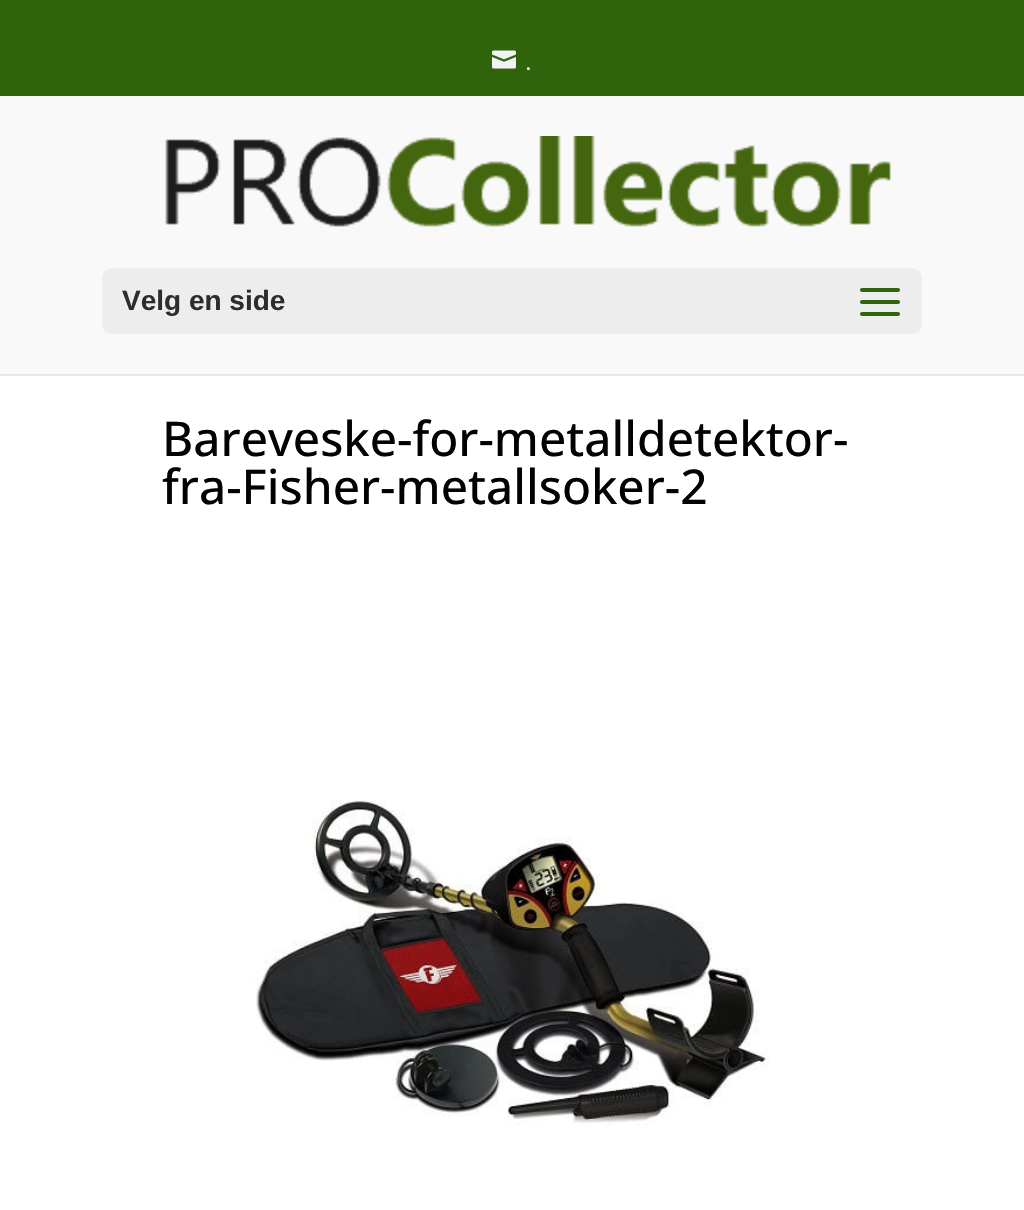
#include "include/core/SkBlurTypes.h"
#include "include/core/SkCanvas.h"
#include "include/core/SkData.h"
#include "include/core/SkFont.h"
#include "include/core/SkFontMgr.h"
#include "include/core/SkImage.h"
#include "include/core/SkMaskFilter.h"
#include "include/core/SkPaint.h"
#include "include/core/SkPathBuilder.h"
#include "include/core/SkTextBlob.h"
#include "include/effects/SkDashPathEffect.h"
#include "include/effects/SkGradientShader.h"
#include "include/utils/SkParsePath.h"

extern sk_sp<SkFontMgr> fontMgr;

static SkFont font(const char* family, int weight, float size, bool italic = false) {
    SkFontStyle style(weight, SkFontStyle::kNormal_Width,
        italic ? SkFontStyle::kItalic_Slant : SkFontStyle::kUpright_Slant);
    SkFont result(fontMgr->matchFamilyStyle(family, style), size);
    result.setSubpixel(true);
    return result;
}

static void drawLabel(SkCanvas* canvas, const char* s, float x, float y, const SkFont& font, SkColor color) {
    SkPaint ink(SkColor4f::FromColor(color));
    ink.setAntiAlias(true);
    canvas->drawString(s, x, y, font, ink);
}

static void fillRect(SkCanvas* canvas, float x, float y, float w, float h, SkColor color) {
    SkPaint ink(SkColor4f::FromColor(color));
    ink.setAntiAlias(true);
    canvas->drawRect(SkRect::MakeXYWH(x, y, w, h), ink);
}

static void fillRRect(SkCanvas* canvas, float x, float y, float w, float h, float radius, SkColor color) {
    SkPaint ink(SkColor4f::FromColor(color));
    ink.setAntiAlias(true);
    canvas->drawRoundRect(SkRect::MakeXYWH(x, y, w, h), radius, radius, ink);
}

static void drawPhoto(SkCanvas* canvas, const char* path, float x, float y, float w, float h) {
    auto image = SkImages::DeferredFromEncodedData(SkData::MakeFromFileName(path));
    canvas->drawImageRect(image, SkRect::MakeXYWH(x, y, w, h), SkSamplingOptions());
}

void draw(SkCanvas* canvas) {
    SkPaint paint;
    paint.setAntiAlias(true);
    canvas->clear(0xFFFFFFFF);
    fillRect(canvas, 0, 0, 1024, 96, 0xFF2F640D);
    drawPhoto(canvas, "assets/img1.png", 492, 50, 24, 19);
    SkFont font1 = font("Liberation Sans", 400, 24);
    drawLabel(canvas, ".", 525, 70, font1, 0xFFF2F2F2);
    fillRect(canvas, 0, 374, 1024, 2, 0xFFE6E6E6);
    fillRect(canvas, 0, 96, 1024, 278, 0xFFF9F9F9);
    drawPhoto(canvas, "assets/img2.png", 165, 136, 726, 91);
    fillRRect(canvas, 102, 268, 820, 66, 10, 0xFFEDEDED);
    SkFont font2 = font("Liberation Sans", 700, 28);
    drawLabel(canvas, "Velg en side", 122, 310, font2, 0xFF2D2D2D);
    drawPhoto(canvas, "assets/img3.png", 860, 288, 40, 28);
    SkFont font3 = font("Open Sans", 500, 48);
    drawLabel(canvas, "Bareveske-for-metalldetektor-", 162, 456, font3, 0xFF020202);
    drawLabel(canvas, "fra-Fisher-metallsoker-2", 162, 504, font3, 0xFF020202);
    drawPhoto(canvas, "assets/img4.png", 255, 800, 514, 326);
}
